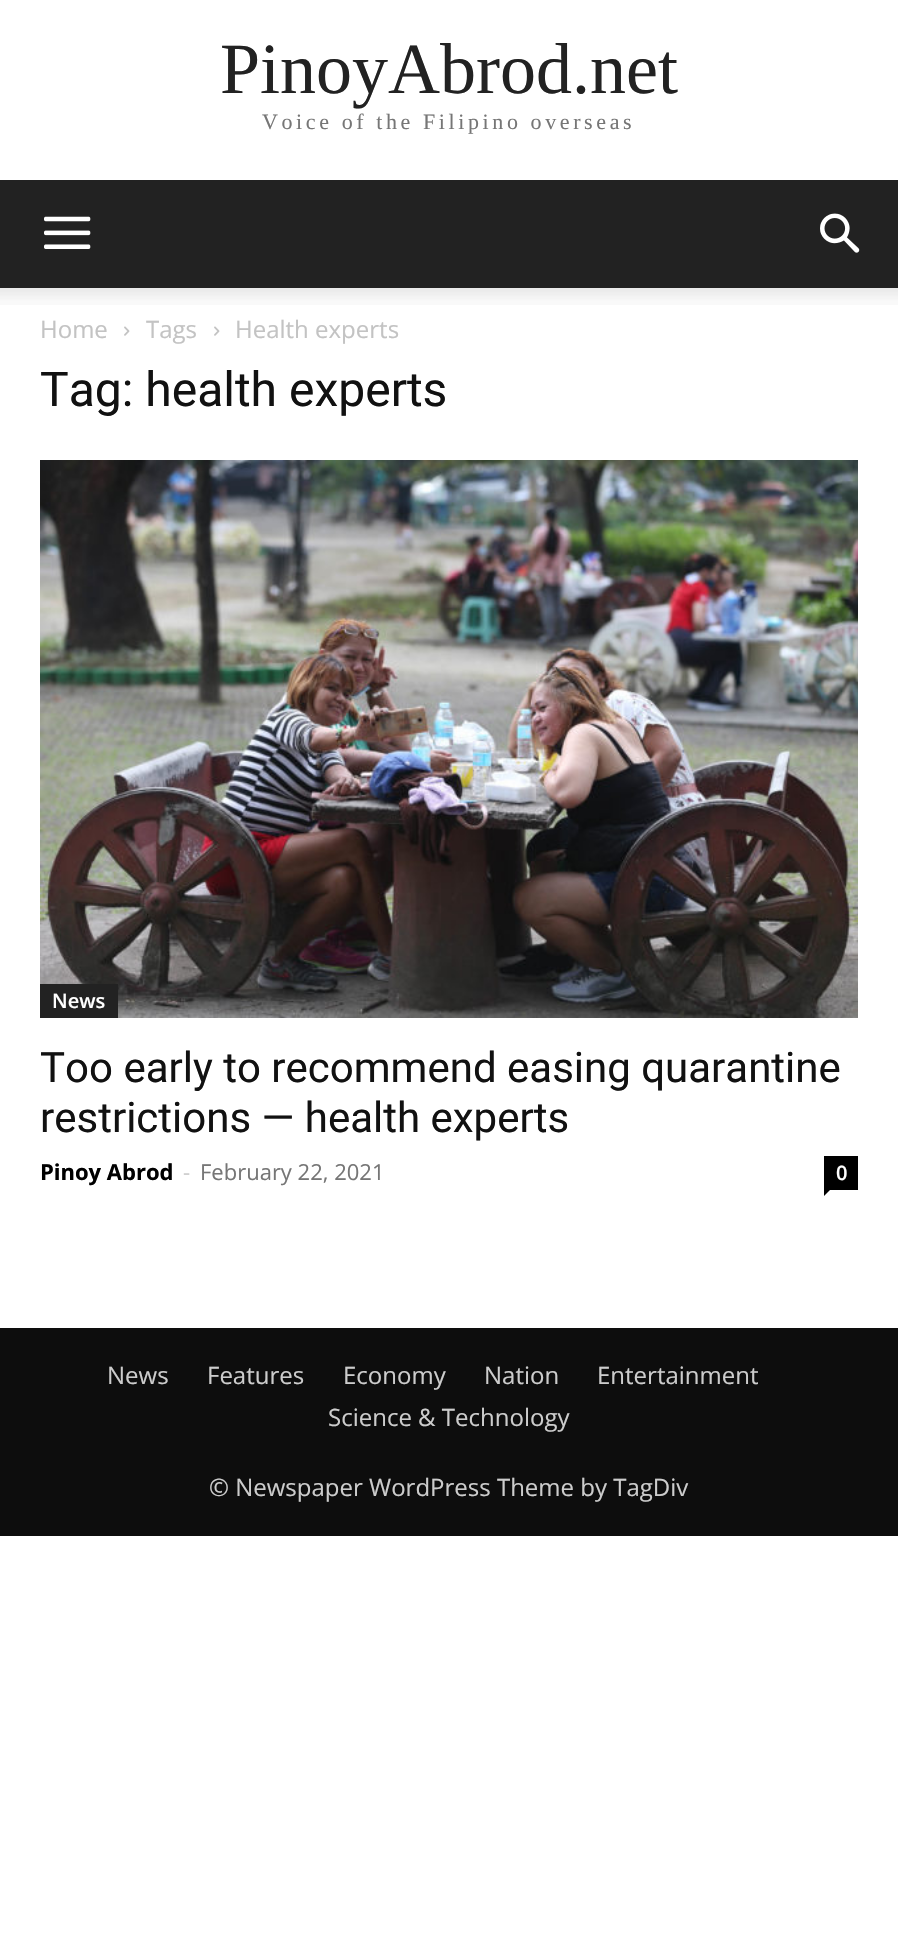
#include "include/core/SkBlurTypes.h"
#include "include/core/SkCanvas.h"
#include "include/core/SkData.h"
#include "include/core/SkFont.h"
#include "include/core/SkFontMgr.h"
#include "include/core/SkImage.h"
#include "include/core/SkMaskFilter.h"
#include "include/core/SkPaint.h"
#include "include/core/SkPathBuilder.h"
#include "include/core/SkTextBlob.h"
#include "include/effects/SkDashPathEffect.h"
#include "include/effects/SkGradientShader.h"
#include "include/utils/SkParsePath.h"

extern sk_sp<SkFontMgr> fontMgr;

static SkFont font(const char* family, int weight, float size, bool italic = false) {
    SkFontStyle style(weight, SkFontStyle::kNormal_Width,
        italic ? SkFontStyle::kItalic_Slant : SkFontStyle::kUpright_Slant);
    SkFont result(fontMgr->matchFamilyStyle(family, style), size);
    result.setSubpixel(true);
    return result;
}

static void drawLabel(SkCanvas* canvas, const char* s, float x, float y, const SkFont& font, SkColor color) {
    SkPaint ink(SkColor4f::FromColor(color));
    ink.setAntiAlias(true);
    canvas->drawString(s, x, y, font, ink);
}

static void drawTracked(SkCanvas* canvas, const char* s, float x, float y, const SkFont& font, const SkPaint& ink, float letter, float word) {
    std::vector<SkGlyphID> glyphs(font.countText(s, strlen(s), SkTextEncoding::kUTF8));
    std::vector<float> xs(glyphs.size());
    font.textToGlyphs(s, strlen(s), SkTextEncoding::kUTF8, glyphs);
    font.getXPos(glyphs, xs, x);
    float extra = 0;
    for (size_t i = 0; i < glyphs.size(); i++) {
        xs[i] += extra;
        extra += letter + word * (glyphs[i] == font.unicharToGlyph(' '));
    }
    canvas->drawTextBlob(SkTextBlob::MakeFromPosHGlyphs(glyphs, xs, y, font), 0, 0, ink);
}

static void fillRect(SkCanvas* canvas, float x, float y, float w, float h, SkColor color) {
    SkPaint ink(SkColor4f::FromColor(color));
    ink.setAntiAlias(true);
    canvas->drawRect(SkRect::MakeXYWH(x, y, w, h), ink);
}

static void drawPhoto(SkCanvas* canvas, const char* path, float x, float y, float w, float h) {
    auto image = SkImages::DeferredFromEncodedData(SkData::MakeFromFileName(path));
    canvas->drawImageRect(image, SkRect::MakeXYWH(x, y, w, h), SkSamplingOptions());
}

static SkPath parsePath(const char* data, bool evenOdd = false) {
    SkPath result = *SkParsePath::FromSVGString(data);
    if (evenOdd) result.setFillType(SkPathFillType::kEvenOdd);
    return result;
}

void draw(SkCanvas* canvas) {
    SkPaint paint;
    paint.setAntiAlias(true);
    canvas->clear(0xFFFFFFFF);
    SkFont font1 = font("Liberation Serif", 400, 72);
    drawLabel(canvas, "PinoyAbrod.net", 220, 93, font1, 0xFF222222);
    SkFont font2 = font("Liberation Serif", 400, 22);
    paint.setColor(0xFF767676);
    drawTracked(canvas, "Voice of the Filipino overseas", 262, 129, font2, paint, 3.6f, 0);
    fillRect(canvas, 0, 180, 898, 108, 0xFF222222);
    drawPhoto(canvas, "assets/img1.png", 44, 216, 47, 33);
    drawPhoto(canvas, "assets/img2.png", 820, 213, 40, 40);
    drawPhoto(canvas, "assets/img3.png", 0, 288, 898, 17);
    SkFont font3 = font("Open Sans", 400, 24);
    drawLabel(canvas, "Home", 40, 338, font3, 0xFFC3C3C3);
    drawPhoto(canvas, "assets/img4.png", 124, 326, 6, 10);
    drawLabel(canvas, "Tags", 146, 338, font3, 0xFFC3C3C3);
    drawPhoto(canvas, "assets/img4.png", 214, 326, 6, 10);
    drawLabel(canvas, "Health experts", 235, 338, font3, 0xFFC3C3C3);
    SkFont font4 = font("Roboto", 400, 48);
    drawLabel(canvas, "Tag: health experts", 40, 406, font4, 0xFF111111);
    drawPhoto(canvas, "assets/img5.png", 40, 460, 818, 558);
    fillRect(canvas, 40, 984, 78, 34, 0xFF222222);
    SkFont font5 = font("Open Sans", 600, 20);
    drawLabel(canvas, "News", 52, 1008, font5, 0xFFFFFFFF);
    SkFont font6 = font("Roboto", 400, 42);
    drawLabel(canvas, "Too early to recommend easing quarantine", 40, 1082, font6, 0xFF111111);
    drawLabel(canvas, "restrictions — health experts", 40, 1132, font6, 0xFF111111);
    SkFont font7 = font("Open Sans", 700, 22);
    drawLabel(canvas, "Pinoy Abrod", 40, 1180, font7, 0xFF000000);
    SkFont font8 = font("Open Sans", 400, 22);
    drawLabel(canvas, "-", 183, 1180, font8, 0xFFCCCCCC);
    drawLabel(canvas, "February 22, 2021", 200, 1180, font8, 0xFF767676);
    fillRect(canvas, 824, 1156, 34, 34, 0xFF000000);
    drawLabel(canvas, "0", 836, 1180, font5, 0xFFFFFFFF);
    paint.setColor(0xFF000000);
    canvas->drawPath(parsePath("M824 1190H830L824 1196Z"), paint);
    fillRect(canvas, 0, 1328, 898, 208, 0xFF0D0D0D);
    drawLabel(canvas, "News", 107, 1384, font3, 0xFFCCCCCC);
    drawLabel(canvas, "Features", 207, 1384, font3, 0xFFCCCCCC);
    drawLabel(canvas, "Economy", 343, 1384, font3, 0xFFCCCCCC);
    drawLabel(canvas, "Nation", 484, 1384, font3, 0xFFCCCCCC);
    drawLabel(canvas, "Entertainment", 597, 1384, font3, 0xFFCCCCCC);
    drawLabel(canvas, "Science & Technology", 328, 1426, font3, 0xFFCCCCCC);
    drawLabel(canvas, "© Newspaper WordPress Theme by TagDiv", 209, 1496, font3, 0xFFCCCCCC);
}
